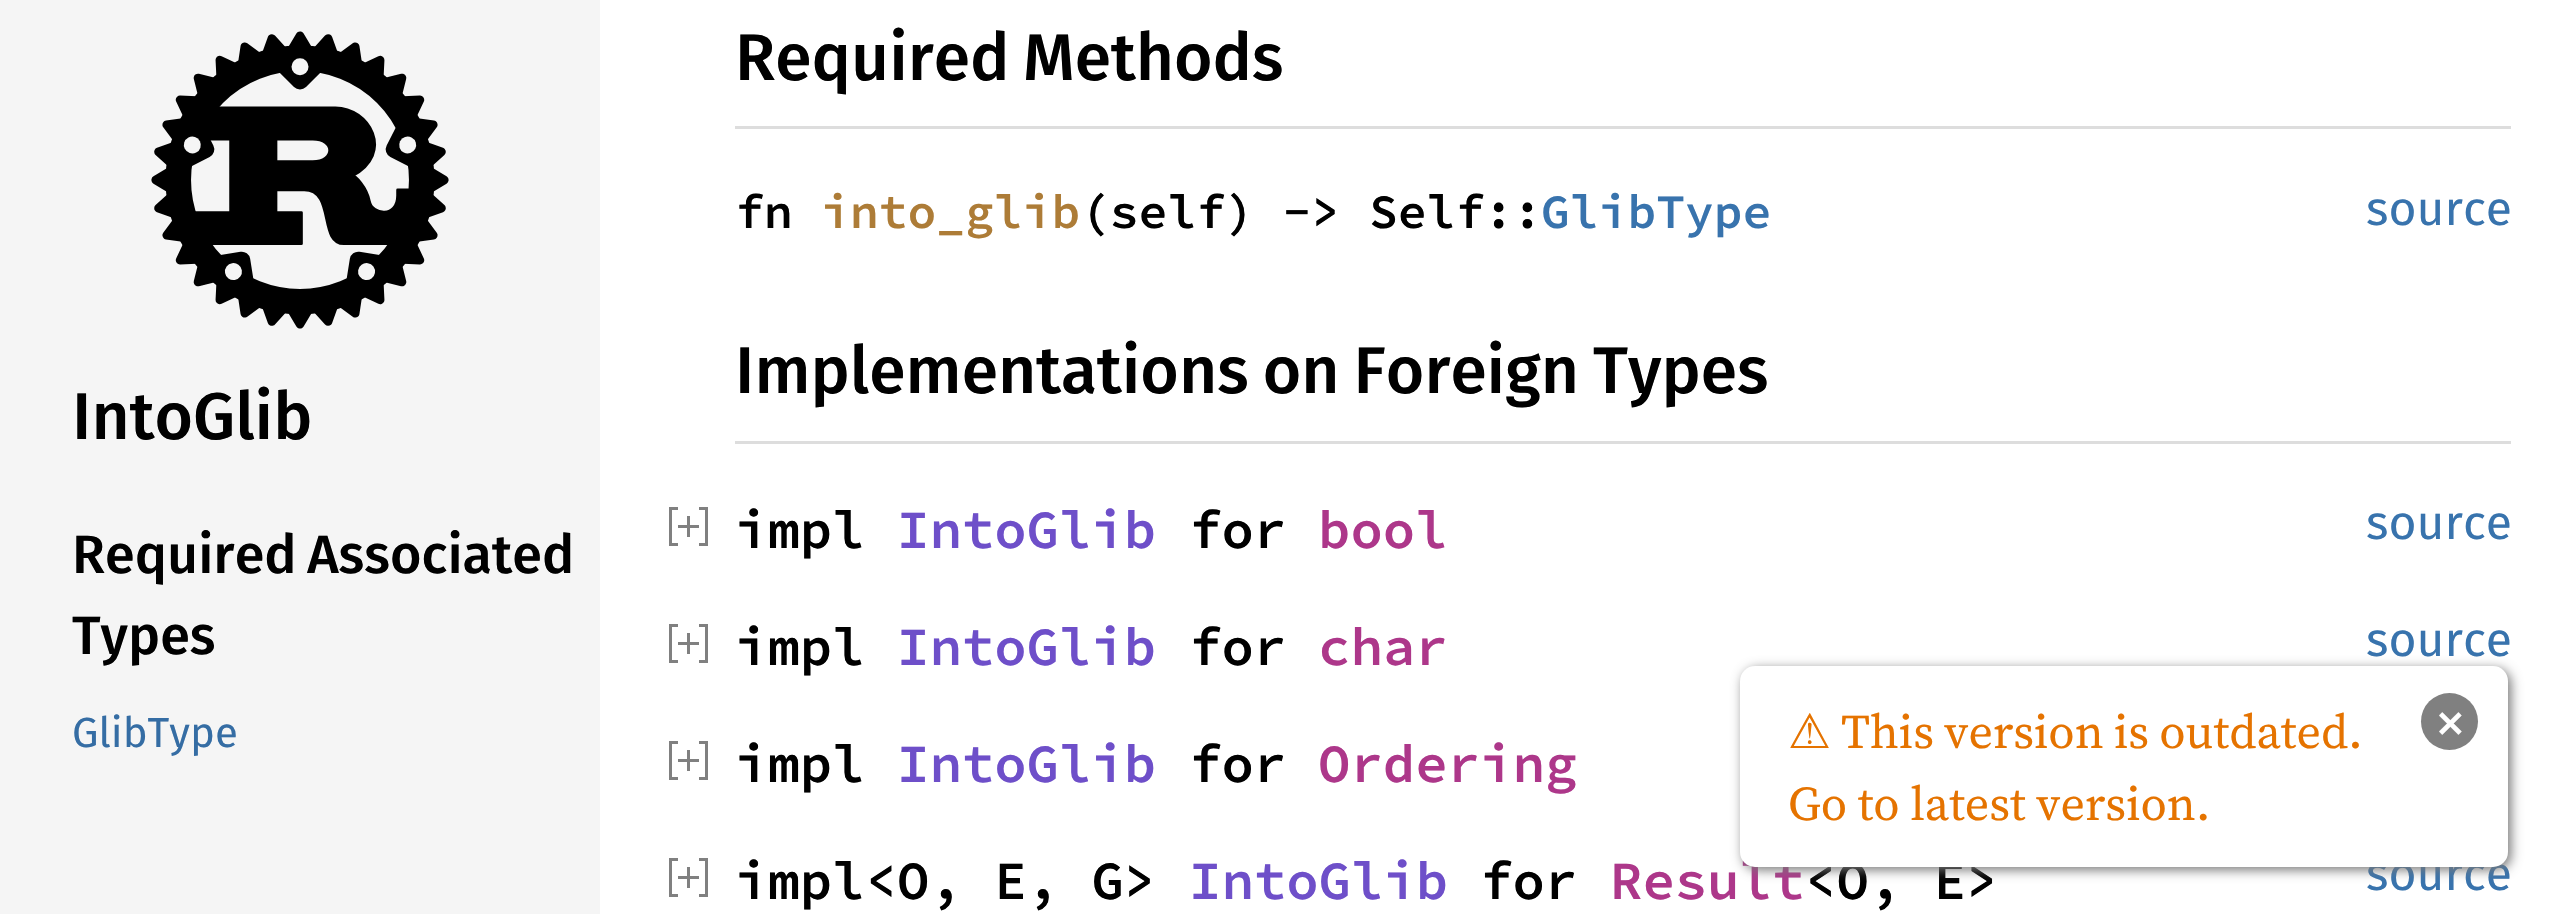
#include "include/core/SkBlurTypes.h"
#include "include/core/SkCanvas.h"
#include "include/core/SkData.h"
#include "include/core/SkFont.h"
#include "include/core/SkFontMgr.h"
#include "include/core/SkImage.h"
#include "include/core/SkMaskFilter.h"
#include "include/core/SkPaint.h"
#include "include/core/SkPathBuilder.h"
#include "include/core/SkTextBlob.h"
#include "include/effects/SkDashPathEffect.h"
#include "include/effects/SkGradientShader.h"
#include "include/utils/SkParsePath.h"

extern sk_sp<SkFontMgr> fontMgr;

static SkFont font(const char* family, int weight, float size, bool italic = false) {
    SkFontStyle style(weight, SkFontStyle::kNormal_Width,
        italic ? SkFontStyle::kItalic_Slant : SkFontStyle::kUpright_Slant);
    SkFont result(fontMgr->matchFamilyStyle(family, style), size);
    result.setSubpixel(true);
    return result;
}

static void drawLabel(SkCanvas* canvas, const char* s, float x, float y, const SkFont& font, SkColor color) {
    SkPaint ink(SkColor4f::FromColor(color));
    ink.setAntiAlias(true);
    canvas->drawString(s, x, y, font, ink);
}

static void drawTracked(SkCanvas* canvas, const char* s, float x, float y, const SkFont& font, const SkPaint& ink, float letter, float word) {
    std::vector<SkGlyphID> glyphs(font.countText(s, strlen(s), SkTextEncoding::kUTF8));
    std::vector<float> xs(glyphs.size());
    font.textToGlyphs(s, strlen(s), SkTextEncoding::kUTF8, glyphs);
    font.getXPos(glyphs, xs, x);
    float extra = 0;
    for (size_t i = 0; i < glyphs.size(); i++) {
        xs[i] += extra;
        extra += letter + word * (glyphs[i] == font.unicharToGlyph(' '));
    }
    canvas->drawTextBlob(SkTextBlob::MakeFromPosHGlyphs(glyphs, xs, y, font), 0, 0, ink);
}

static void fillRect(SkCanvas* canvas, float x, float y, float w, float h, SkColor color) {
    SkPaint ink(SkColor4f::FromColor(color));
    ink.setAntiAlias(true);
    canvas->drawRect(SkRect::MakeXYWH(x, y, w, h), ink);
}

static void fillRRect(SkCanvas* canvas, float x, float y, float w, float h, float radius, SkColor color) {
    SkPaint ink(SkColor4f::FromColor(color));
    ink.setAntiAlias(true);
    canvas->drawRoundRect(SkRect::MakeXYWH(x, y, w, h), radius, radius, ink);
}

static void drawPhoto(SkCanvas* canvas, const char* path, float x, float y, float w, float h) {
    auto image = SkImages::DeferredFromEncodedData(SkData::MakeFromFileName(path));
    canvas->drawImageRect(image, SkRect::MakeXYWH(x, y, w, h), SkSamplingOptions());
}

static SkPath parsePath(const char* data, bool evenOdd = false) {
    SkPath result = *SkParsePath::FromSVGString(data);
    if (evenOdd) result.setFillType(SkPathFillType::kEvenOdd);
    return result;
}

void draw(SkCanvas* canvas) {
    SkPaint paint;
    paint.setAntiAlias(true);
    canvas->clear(0xFFFFFFFF);
    fillRect(canvas, 0, 0, 600, 914, 0xFFF5F5F5);
    drawPhoto(canvas, "assets/img1.png", 151, 31, 298, 298);
    SkFont font1 = font("Fira Sans", 500, 66);
    drawLabel(canvas, "IntoGlib", 72, 439, font1, 0xFF000000);
    SkFont font2 = font("Fira Sans", 500, 54);
    paint.setColor(0xFF000000);
    drawTracked(canvas, "Required Associated", 72, 573, font2, paint, 0, -3);
    drawLabel(canvas, "Types", 72, 654, font2, 0xFF000000);
    SkFont font3 = font("Fira Sans", 400, 42);
    drawLabel(canvas, "GlibType", 72, 747, font3, 0xFF356DA4);
    fillRect(canvas, 735, 126, 1776, 3, 0xFFDDDDDD);
    drawTracked(canvas, "Required Methods", 735, 80, font1, paint, 0, -3);
    SkFont font4 = font("Source Code Pro", 600, 48);
    drawLabel(canvas, "fn", 735, 228, font4, 0xFF000000);
    drawLabel(canvas, "into_glib", 821, 228, font4, 0xFFAD7C37);
    drawLabel(canvas, "(self) -> Self::", 1081, 228, font4, 0xFF000000);
    drawLabel(canvas, "GlibType", 1541, 228, font4, 0xFF3873AD);
    SkFont font5 = font("Fira Sans", 400, 48);
    drawLabel(canvas, "source", 2366, 225, font5, 0xFF3873AD);
    fillRect(canvas, 735, 441, 1776, 3, 0xFFDDDDDD);
    drawTracked(canvas, "Implementations on Foreign Types", 735, 393, font1, paint, 0, -2.5f);
    paint.setStroke(true);
    paint.setStrokeWidth(3);
    paint.setColor(0xFF808080);
    canvas->drawPath(parsePath("M678 508.5H670.5V544.5H678M699 508.5H706.5V544.5H699M678 526.5H699M688.5 537V516"), paint);
    SkFont font6 = font("Source Code Pro", 600, 54);
    drawLabel(canvas, "impl", 735, 548, font6, 0xFF000000);
    drawLabel(canvas, "IntoGlib", 897, 548, font6, 0xFF6E4FC9);
    drawLabel(canvas, "for", 1189, 548, font6, 0xFF000000);
    drawLabel(canvas, "bool", 1318, 548, font6, 0xFFAD378A);
    drawLabel(canvas, "source", 2366, 539, font5, 0xFF3873AD);
    canvas->drawPath(parsePath("M678 625.5H670.5V661.5H678M699 625.5H706.5V661.5H699M678 643.5H699M688.5 654V633"), paint);
    drawLabel(canvas, "impl", 735, 665, font6, 0xFF000000);
    drawLabel(canvas, "IntoGlib", 897, 665, font6, 0xFF6E4FC9);
    drawLabel(canvas, "for", 1189, 665, font6, 0xFF000000);
    drawLabel(canvas, "char", 1318, 665, font6, 0xFFAD378A);
    drawLabel(canvas, "source", 2366, 656, font5, 0xFF3873AD);
    canvas->drawPath(parsePath("M678 742.5H670.5V778.5H678M699 742.5H706.5V778.5H699M678 760.5H699M688.5 771V750"), paint);
    drawLabel(canvas, "impl", 735, 782, font6, 0xFF000000);
    drawLabel(canvas, "IntoGlib", 897, 782, font6, 0xFF6E4FC9);
    drawLabel(canvas, "for", 1189, 782, font6, 0xFF000000);
    drawLabel(canvas, "Ordering", 1318, 782, font6, 0xFFAD378A);
    canvas->drawPath(parsePath("M678 859.5H670.5V895.5H678M699 859.5H706.5V895.5H699M678 877.5H699M688.5 888V867"), paint);
    drawLabel(canvas, "impl<O, E, G>", 735, 899, font6, 0xFF000000);
    drawLabel(canvas, "IntoGlib", 1189, 899, font6, 0xFF6E4FC9);
    drawLabel(canvas, "for", 1480, 899, font6, 0xFF000000);
    drawLabel(canvas, "Result", 1610, 899, font6, 0xFFAD378A);
    drawLabel(canvas, "<O, E>", 1804, 899, font6, 0xFF000000);
    drawLabel(canvas, "source", 2366, 890, font5, 0xFF3873AD);
    paint.setStroke(false);
    paint.setColor(0xFF777777);
    paint.setMaskFilter(SkMaskFilter::MakeBlur(kNormal_SkBlurStyle, 6));
    canvas->drawRoundRect(SkRect::MakeXYWH(1743, 669, 768, 201), 15, 15, paint);
    paint.setMaskFilter(nullptr);
    fillRRect(canvas, 1740, 666, 768, 201, 15, 0xFFFFFFFF);
    SkFont font7 = font("DejaVu Sans", 400, 48);
    drawLabel(canvas, "⚠", 1788, 748, font7, 0xFFE57300);
    SkFont font8 = font("Source Serif 4", 400, 48);
    paint.setColor(0xFFE57300);
    drawTracked(canvas, "This version is outdated.", 1841, 748, font8, paint, 0, -1);
    drawTracked(canvas, "Go to latest version.", 1788, 820, font8, paint, 0, -0.5f);
    paint.setColor(0xFF808080);
    canvas->drawCircle(2449.5f, 721.5f, 28.5f, paint);
    SkFont font9 = font("Source Serif 4", 700, 48);
    drawLabel(canvas, "×", 2437, 739, font9, 0xFFFFFFFF);
}
